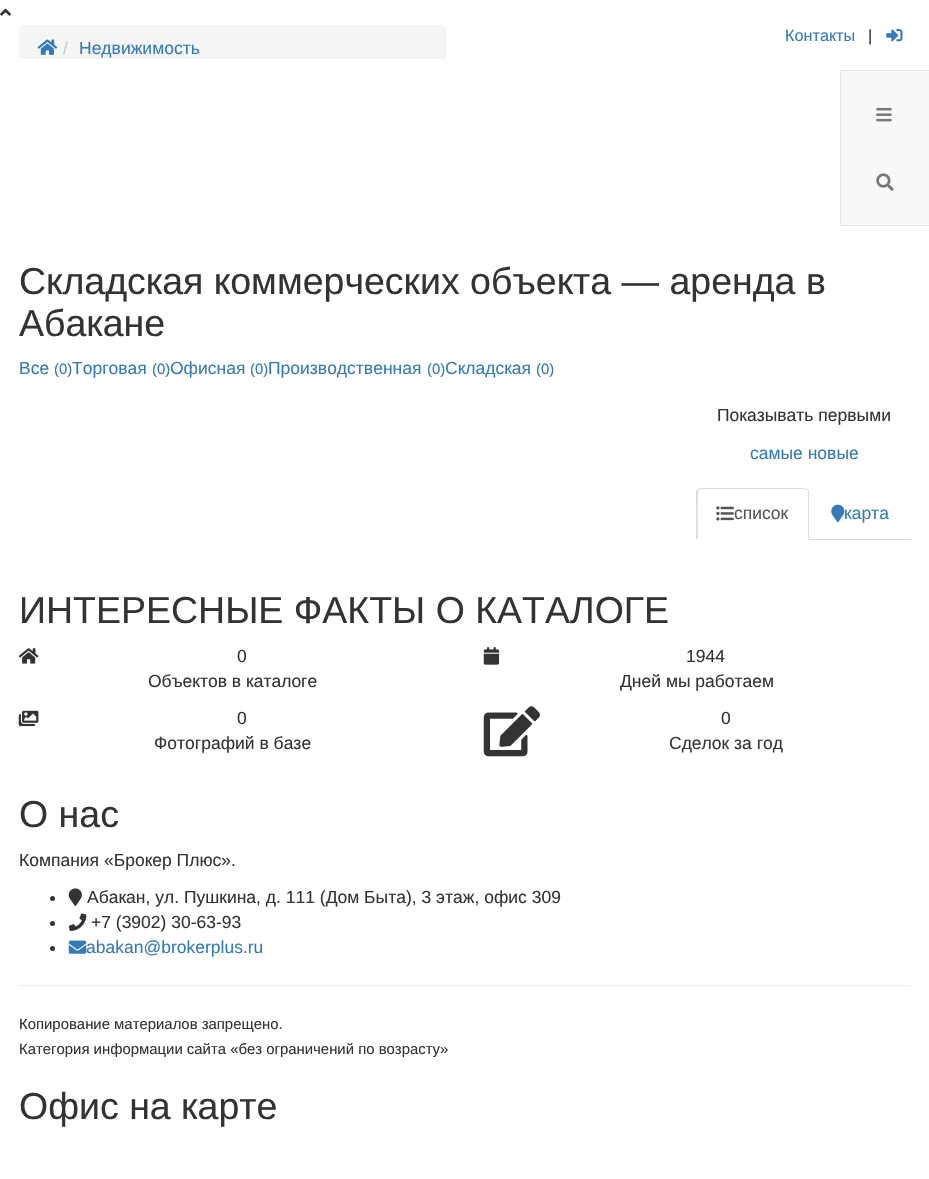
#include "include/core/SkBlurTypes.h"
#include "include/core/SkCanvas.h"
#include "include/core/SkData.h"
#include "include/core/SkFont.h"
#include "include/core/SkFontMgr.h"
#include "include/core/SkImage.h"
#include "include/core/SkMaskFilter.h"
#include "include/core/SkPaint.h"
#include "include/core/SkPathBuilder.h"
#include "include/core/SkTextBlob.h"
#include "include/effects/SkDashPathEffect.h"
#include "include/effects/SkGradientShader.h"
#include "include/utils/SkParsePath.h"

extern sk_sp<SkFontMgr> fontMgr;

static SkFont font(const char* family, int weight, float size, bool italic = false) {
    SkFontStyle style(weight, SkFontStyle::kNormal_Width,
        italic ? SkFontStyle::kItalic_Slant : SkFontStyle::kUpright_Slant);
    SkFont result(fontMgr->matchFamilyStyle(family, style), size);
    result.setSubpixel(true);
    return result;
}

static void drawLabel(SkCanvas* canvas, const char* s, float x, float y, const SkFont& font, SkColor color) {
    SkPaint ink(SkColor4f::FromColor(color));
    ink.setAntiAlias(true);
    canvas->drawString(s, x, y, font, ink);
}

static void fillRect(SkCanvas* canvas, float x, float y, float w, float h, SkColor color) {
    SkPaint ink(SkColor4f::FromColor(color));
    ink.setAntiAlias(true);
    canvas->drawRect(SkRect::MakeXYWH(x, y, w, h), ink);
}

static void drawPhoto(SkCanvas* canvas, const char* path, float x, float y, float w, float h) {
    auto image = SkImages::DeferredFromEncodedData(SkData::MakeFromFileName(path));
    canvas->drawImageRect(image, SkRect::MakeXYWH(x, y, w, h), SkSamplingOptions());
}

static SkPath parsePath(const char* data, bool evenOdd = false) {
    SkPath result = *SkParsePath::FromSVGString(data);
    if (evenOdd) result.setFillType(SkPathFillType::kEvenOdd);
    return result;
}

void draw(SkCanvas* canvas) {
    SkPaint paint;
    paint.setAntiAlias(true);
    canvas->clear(0xFFFFFFFF);
    drawPhoto(canvas, "assets/img1.png", 0, 8, 11, 8);
    SkFont font1 = font("Liberation Sans", 400, 16.25f);
    drawLabel(canvas, "Контакты", 785, 41, font1, 0xFF337AB7);
    drawLabel(canvas, "|", 868, 41, font1, 0xFF333333);
    drawPhoto(canvas, "assets/img2.png", 886, 29, 17, 13);
    paint.setColor(0xFFF5F5F5);
    canvas->drawPath(parsePath("M24 25H441C444 25 446 27 446 30V59H19V30C19 27 21 25 24 25Z"), paint);
    drawPhoto(canvas, "assets/img3.png", 37, 39, 21, 16);
    SkFont font2 = font("Liberation Sans", 400, 17.5f);
    drawLabel(canvas, "/", 63, 54, font2, 0xFFCCCCCC);
    drawLabel(canvas, "Недвижимость", 79, 54, font2, 0xFF337AB7);
    paint.setColor(0xFFF8F8F8);
    canvas->drawRect(SkRect::MakeXYWH(840.5f, 70.5f, 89, 155), paint);
    paint.setStroke(true);
    paint.setStrokeWidth(1);
    paint.setColor(0xFFE7E7E7);
    canvas->drawRect(SkRect::MakeXYWH(840.5f, 70.5f, 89, 155), paint);
    drawPhoto(canvas, "assets/img4.png", 876, 108, 16, 14);
    drawPhoto(canvas, "assets/img5.png", 876, 173, 18, 18);
    SkFont font3 = font("Liberation Sans", 400, 37.5f);
    drawLabel(canvas, "Складская коммерческих объекта — аренда в", 19, 294, font3, 0xFF333333);
    drawLabel(canvas, "Абакане", 19, 336, font3, 0xFF333333);
    drawLabel(canvas, "Все", 19, 374, font2, 0xFF337AB7);
    SkFont font4 = font("Liberation Sans", 400, 14.9f);
    drawLabel(canvas, "(0)", 54, 374, font4, 0xFF337AB7);
    drawLabel(canvas, "Торговая", 72, 374, font2, 0xFF337AB7);
    drawLabel(canvas, "(0)", 152, 374, font4, 0xFF337AB7);
    drawLabel(canvas, "Офисная", 170, 374, font2, 0xFF337AB7);
    drawLabel(canvas, "(0)", 250, 374, font4, 0xFF337AB7);
    drawLabel(canvas, "Производственная", 268, 374, font2, 0xFF337AB7);
    drawLabel(canvas, "(0)", 427, 374, font4, 0xFF337AB7);
    drawLabel(canvas, "Складская", 445, 374, font2, 0xFF337AB7);
    drawLabel(canvas, "(0)", 536, 374, font4, 0xFF337AB7);
    drawLabel(canvas, "Показывать первыми", 717, 421, font2, 0xFF333333);
    drawLabel(canvas, "самые новые", 750, 459, font2, 0xFF337AB7);
    fillRect(canvas, 809, 539, 102, 1, 0xFFDDDDDD);
    paint.setStroke(false);
    paint.setColor(0xFFDDDDDD);
    canvas->drawPath(parsePath("M701 488L698 489L699 490L701 489H804L807 490V489L804 488Z"), paint);
    canvas->drawPath(parsePath("M807 489L809 491V540L808 539V491L807 490Z"), paint);
    canvas->drawPath(parsePath("M696 540L698 538C698 532 697 492 699 490L698 489L696 491Z"), paint);
    drawPhoto(canvas, "assets/img6.png", 716, 506, 18, 15);
    drawLabel(canvas, "список", 734, 519, font2, 0xFF555555);
    drawPhoto(canvas, "assets/img7.png", 831, 504, 14, 19);
    drawLabel(canvas, "карта", 844, 519, font2, 0xFF337AB7);
    drawLabel(canvas, "ИНТЕРЕСНЫЕ ФАКТЫ О КАТАЛОГЕ", 19, 623, font3, 0xFF333333);
    drawPhoto(canvas, "assets/img8.png", 18, 648, 21, 16);
    drawLabel(canvas, "0", 237, 662, font2, 0xFF333333);
    drawLabel(canvas, "Объектов в каталоге", 148, 687, font2, 0xFF333333);
    drawPhoto(canvas, "assets/img9.png", 483, 647, 17, 18);
    drawLabel(canvas, "1944", 686, 662, font2, 0xFF333333);
    drawLabel(canvas, "Дней мы работаем", 620, 687, font2, 0xFF333333);
    drawPhoto(canvas, "assets/img10.png", 18, 710, 21, 17);
    drawLabel(canvas, "0", 237, 724, font2, 0xFF333333);
    drawLabel(canvas, "Фотографий в базе", 154, 749, font2, 0xFF333333);
    drawPhoto(canvas, "assets/img11.png", 483, 706, 57, 51);
    drawLabel(canvas, "0", 721, 724, font2, 0xFF333333);
    drawLabel(canvas, "Сделок за год", 669, 749, font2, 0xFF333333);
    drawLabel(canvas, "О нас", 19, 827, font3, 0xFF333333);
    drawLabel(canvas, "Компания «Брокер Плюс».", 19, 866, font2, 0xFF333333);
    paint.setColor(0xFF333333);
    canvas->drawCircle(52.5f, 898.5f, 2.5f, paint);
    drawPhoto(canvas, "assets/img12.png", 68, 888, 14, 18);
    drawLabel(canvas, "Абакан, ул. Пушкина, д. 111 (Дом Быта), 3 этаж, офис 309", 87, 903, font2, 0xFF333333);
    canvas->drawCircle(52.5f, 923.5f, 2.5f, paint);
    drawPhoto(canvas, "assets/img13.png", 68, 913, 19, 18);
    drawLabel(canvas, "+7 (3902) 30-63-93", 91, 928, font2, 0xFF333333);
    canvas->drawCircle(52.5f, 948.5f, 2.5f, paint);
    drawPhoto(canvas, "assets/img14.png", 68, 940, 19, 14);
    drawLabel(canvas, "abakan@brokerplus.ru", 86, 953, font2, 0xFF337AB7);
    fillRect(canvas, 19, 985, 892, 1, 0xFFEEEEEE);
    drawLabel(canvas, "Копирование материалов запрещено.", 19, 1029, font4, 0xFF333333);
    drawLabel(canvas, "Категория информации сайта «без ограничений по возрасту»", 19, 1054, font4, 0xFF333333);
    drawLabel(canvas, "Офис на карте", 19, 1119, font3, 0xFF333333);
}
